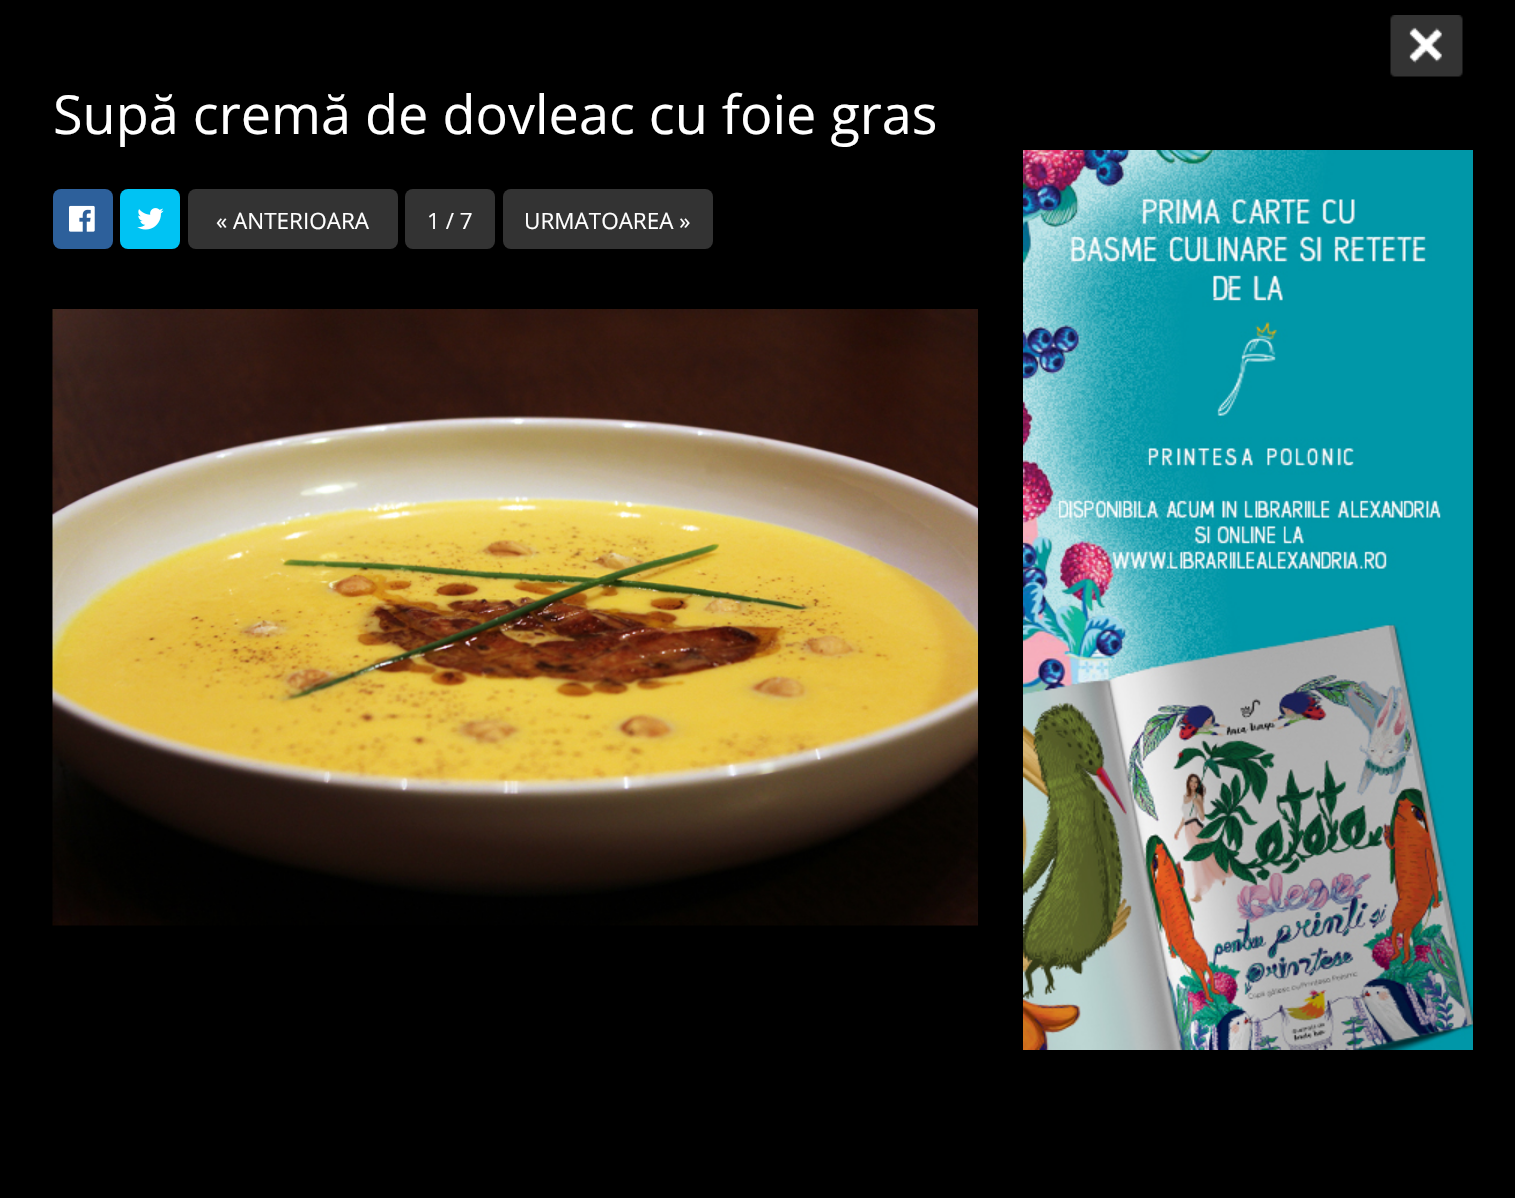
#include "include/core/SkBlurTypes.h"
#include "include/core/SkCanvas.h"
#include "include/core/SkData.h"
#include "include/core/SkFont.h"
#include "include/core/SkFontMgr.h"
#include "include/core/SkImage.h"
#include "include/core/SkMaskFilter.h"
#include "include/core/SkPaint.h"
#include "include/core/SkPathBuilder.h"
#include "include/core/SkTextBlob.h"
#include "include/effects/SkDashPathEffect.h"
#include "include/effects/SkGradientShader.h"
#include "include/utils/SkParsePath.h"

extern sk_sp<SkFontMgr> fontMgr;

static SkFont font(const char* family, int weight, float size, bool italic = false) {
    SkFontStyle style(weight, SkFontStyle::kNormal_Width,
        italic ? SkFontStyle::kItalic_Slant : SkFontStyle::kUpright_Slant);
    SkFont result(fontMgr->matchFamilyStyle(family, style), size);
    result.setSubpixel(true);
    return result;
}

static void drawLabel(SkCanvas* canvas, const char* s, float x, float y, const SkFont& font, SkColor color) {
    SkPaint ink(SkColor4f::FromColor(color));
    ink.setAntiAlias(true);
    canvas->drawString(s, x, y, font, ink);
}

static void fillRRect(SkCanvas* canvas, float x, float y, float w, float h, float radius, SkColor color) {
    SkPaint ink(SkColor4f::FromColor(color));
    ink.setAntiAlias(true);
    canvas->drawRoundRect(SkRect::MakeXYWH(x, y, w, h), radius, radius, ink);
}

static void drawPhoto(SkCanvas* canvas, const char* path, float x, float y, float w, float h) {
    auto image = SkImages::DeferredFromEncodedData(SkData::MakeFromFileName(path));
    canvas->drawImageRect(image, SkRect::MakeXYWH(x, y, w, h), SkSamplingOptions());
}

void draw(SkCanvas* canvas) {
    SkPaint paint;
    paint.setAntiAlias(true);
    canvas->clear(0xFF000000);
    drawPhoto(canvas, "assets/img1.png", 1390, 15, 73, 62);
    SkFont font1 = font("Open Sans", 400, 54);
    drawLabel(canvas, "Supă cremă de dovleac cu foie gras", 53, 134, font1, 0xFFFFFFFF);
    fillRRect(canvas, 53, 189, 60, 60, 8, 0xFF2D609B);
    drawPhoto(canvas, "assets/img2.png", 69, 205, 26, 27);
    fillRRect(canvas, 120, 189, 60, 60, 8, 0xFF00C3F3);
    drawPhoto(canvas, "assets/img3.png", 137, 208, 27, 22);
    fillRRect(canvas, 188, 189, 210, 60, 8, 0xFF333333);
    SkFont font2 = font("Open Sans", 400, 22.5f);
    drawLabel(canvas, "« ANTERIOARA", 216, 229, font2, 0xFFFFFFFF);
    fillRRect(canvas, 405, 189, 90, 60, 8, 0xFF333333);
    drawLabel(canvas, "1 / 7", 427, 229, font2, 0xFFFFFFFF);
    fillRRect(canvas, 503, 189, 210, 60, 8, 0xFF333333);
    drawLabel(canvas, "URMATOAREA »", 524, 229, font2, 0xFFFFFFFF);
    drawPhoto(canvas, "assets/img4.png", 52, 309, 926, 617);
    drawPhoto(canvas, "assets/img5.png", 1023, 150, 450, 900);
}
